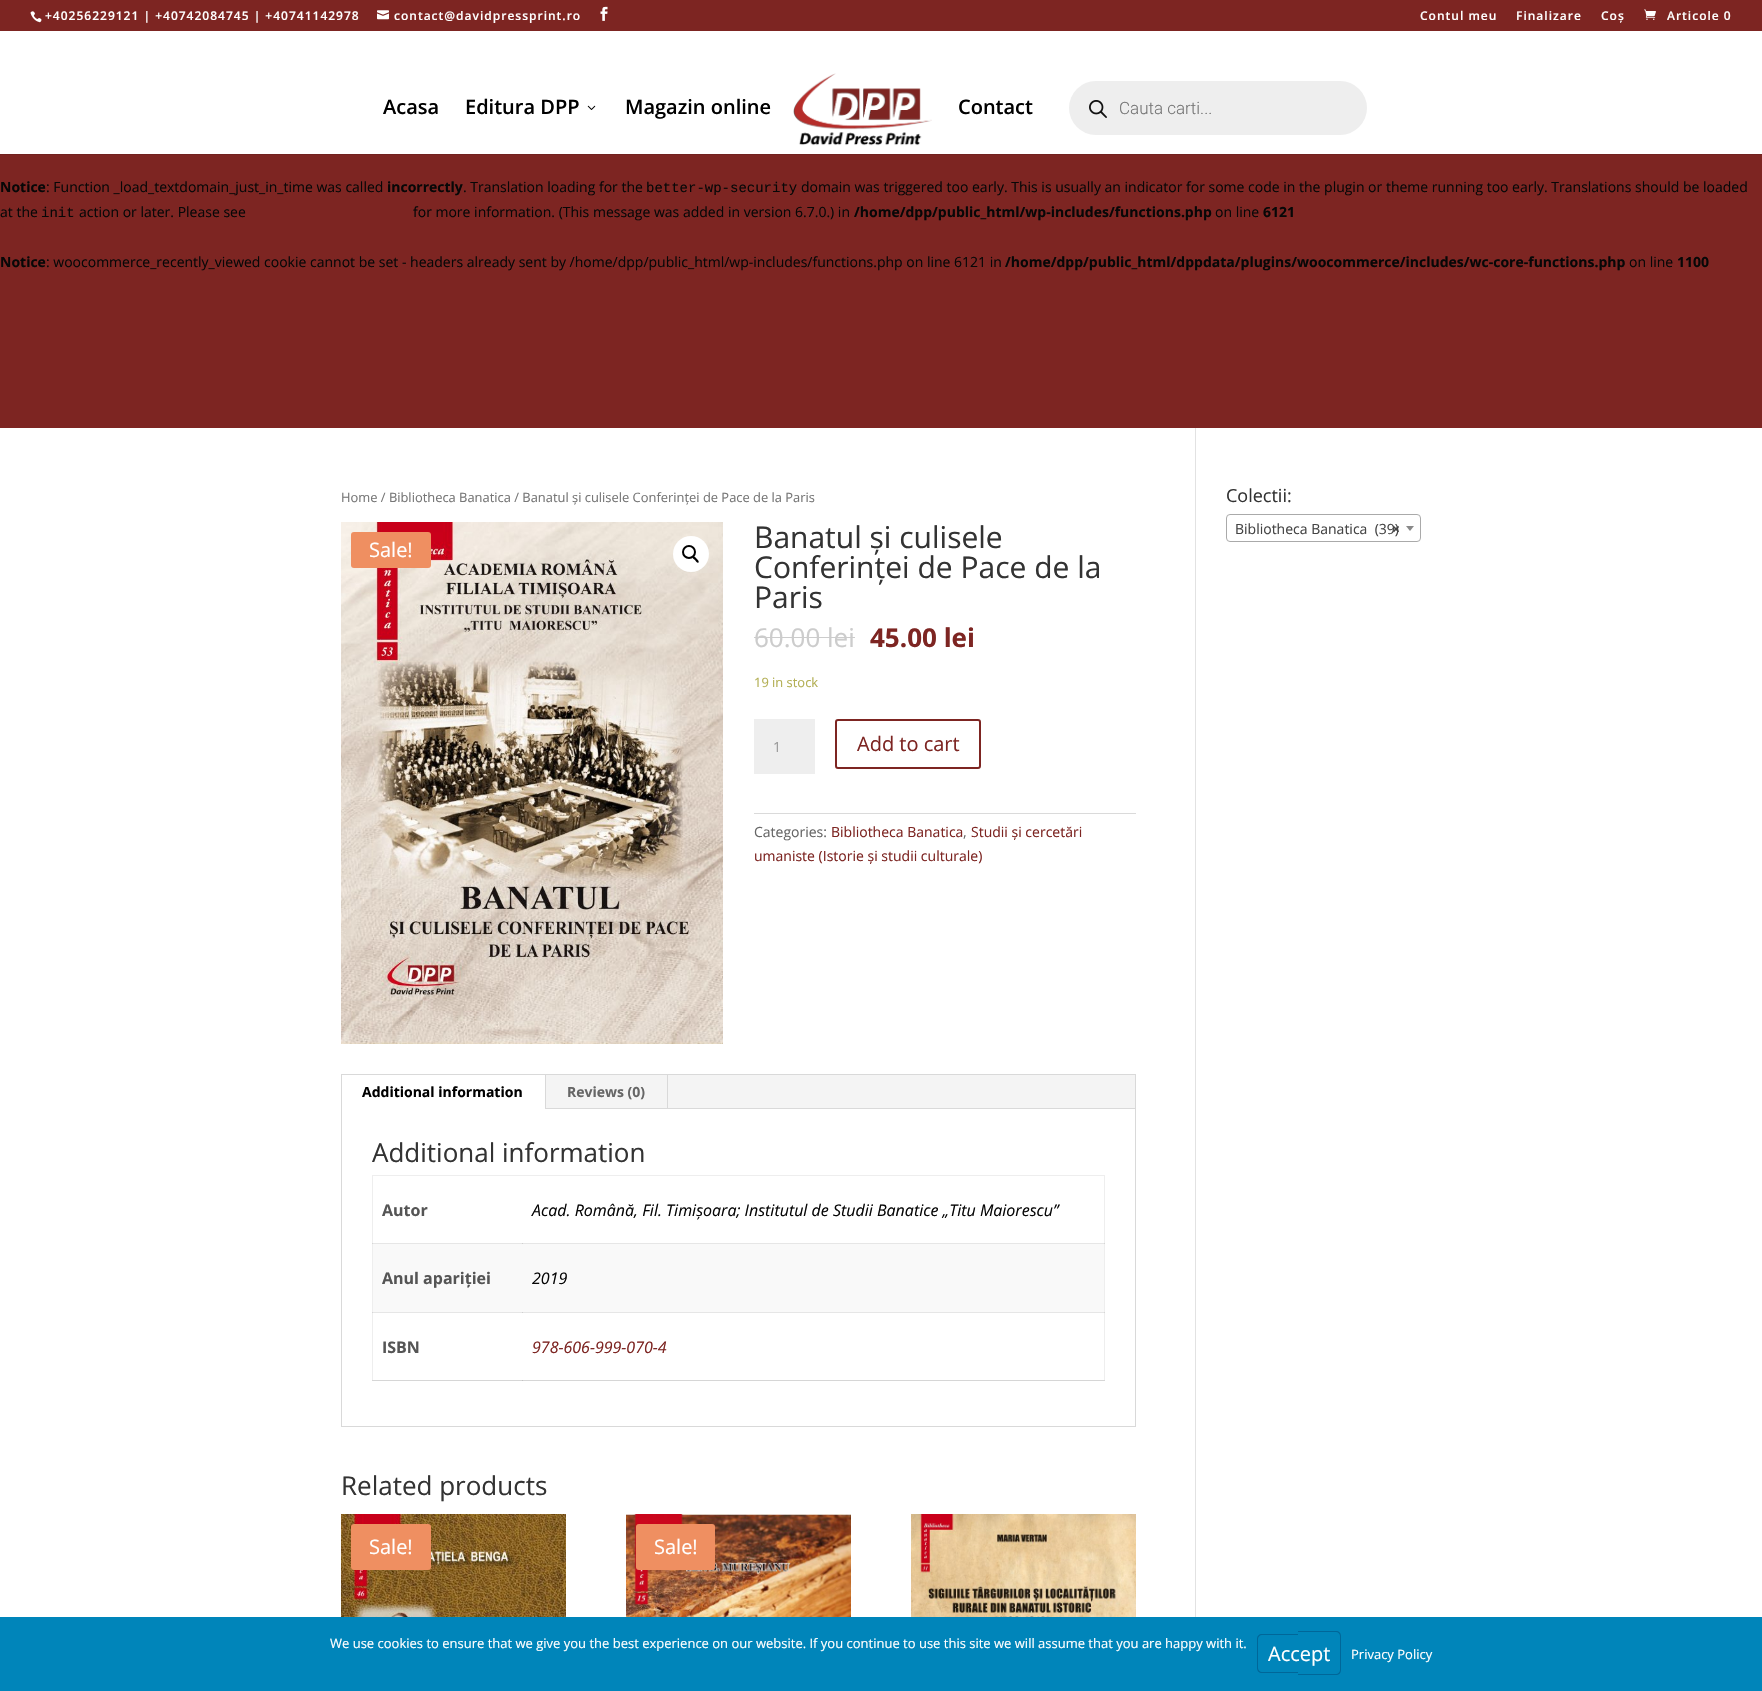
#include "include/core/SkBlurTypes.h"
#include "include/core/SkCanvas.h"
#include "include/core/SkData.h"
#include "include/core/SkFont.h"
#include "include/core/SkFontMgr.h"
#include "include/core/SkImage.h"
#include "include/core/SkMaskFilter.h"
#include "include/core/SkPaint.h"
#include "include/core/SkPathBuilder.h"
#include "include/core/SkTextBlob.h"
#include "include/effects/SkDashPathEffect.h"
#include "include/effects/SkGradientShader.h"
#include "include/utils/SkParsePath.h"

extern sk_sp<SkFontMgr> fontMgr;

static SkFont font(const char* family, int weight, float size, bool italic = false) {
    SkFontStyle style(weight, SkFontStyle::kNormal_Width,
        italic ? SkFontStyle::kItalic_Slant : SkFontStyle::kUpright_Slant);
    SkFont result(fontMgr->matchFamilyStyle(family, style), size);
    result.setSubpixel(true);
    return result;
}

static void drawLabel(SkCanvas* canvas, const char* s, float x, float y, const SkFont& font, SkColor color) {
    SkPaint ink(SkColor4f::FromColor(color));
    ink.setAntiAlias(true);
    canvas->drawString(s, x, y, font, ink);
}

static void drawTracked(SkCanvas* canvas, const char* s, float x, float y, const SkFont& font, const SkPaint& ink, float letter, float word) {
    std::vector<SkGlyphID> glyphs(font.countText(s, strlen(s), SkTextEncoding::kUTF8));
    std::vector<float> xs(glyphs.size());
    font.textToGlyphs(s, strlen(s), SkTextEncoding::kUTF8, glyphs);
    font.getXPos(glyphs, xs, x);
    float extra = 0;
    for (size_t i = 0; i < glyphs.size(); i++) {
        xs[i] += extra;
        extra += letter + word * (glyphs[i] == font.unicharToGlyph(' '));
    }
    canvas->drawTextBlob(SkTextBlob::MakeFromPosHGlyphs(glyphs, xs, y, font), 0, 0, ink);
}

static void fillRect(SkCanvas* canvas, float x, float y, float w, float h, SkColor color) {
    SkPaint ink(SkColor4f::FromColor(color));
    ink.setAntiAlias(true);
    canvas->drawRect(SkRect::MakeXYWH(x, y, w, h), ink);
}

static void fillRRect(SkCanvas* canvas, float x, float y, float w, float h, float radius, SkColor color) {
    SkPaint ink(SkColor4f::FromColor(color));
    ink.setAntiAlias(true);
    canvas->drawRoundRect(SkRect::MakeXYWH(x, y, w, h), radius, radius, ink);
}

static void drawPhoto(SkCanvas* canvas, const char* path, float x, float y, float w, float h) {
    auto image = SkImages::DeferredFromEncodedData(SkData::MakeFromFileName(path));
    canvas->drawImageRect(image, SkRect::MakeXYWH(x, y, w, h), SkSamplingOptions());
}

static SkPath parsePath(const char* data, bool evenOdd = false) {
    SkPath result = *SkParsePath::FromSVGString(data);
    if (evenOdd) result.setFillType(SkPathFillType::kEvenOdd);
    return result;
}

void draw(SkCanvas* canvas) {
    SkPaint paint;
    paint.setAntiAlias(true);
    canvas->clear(0xFF7D2522);
    SkFont font1 = font("Open Sans", 700, 14);
    drawLabel(canvas, "Notice", 0, 192, font1, 0xFF070707);
    drawPhoto(canvas, "assets/img1.png", 30, 11, 12, 12);
    SkFont font2 = font("Open Sans", 600, 12);
    paint.setColor(0xFFFFFFFF);
    drawTracked(canvas, "+40256229121 | +40742084745 | +40741142978", 45, 20, font2, paint, 1, 0);
    drawPhoto(canvas, "assets/img2.png", 377, 10, 12, 10);
    drawTracked(canvas, "contact@davidpressprint.ro", 394, 20, font2, paint, 1, 0);
    drawPhoto(canvas, "assets/img3.png", 600, 6, 8, 15);
    drawTracked(canvas, "Contul meu", 1420, 20, font2, paint, 1, 0);
    drawTracked(canvas, "Finalizare", 1516, 20, font2, paint, 1, 0);
    drawTracked(canvas, "Coș", 1601, 20, font2, paint, 1, 0);
    drawPhoto(canvas, "assets/img4.png", 1644, 9, 12, 11);
    drawTracked(canvas, "Articole 0", 1667, 20, font2, paint, 1, 0);
    fillRect(canvas, 0, 154, 1762, 1, 0xFF71211F);
    fillRect(canvas, 0, 31, 1762, 123, 0xFFFFFFFF);
    SkFont font3 = font("Open Sans", 600, 20);
    drawLabel(canvas, "Acasa", 383, 114, font3, 0xFF000000);
    drawLabel(canvas, "Editura DPP", 465, 114, font3, 0xFF000000);
    drawPhoto(canvas, "assets/img5.png", 587, 105, 9, 5);
    drawLabel(canvas, "Magazin online", 625, 114, font3, 0xFF000000);
    drawPhoto(canvas, "assets/img6.png", 793, 73, 139, 73);
    drawLabel(canvas, "Contact", 958, 114, font3, 0xFF000000);
    fillRRect(canvas, 1069, 81, 298, 54, 27, 0xFFEEEEEE);
    drawPhoto(canvas, "assets/img7.png", 1089, 100, 18, 18);
    SkFont font4 = font("Roboto", 300, 17);
    drawLabel(canvas, "Cauta carti...", 1119, 114, font4, 0xFF767676);
    fillRect(canvas, 0, 428, 1762, 1189, 0xFFFFFFFF);
    fillRect(canvas, 372, 1243, 733, 1, 0xFFE6E6E6);
    fillRect(canvas, 522, 1243, 1, 1, 0xFFCFCFCF);
    fillRect(canvas, 372, 1312, 733, 1, 0xFFE6E6E6);
    fillRect(canvas, 522, 1312, 1, 1, 0xFFCFCFCF);
    fillRect(canvas, 1195, 428, 1, 1189, 0xFFE2E2E2);
    SkFont font5 = font("Open Sans", 400, 12.9f);
    drawLabel(canvas, "Home / Bibliotheca Banatica / Banatul și culisele Conferinței de Pace de la Paris", 341, 502, font5, 0xFF767676);
    drawPhoto(canvas, "assets/img8.png", 341, 522, 382, 522);
    canvas->drawCircle(691, 554, 18, paint);
    paint.setStroke(true);
    paint.setStrokeWidth(2);
    paint.setColor(0xFF000000);
    canvas->drawCircle(689, 552, 6, paint);
    paint.setStroke(false);
    canvas->drawPath(parsePath("M693 556.5C694 555.5 696 558 696.5 558.5C697 559.5 699.5 561 698.5 562.5C697.5 563.5 695.5 561 695 560C694.5 559.5 691.5 558 693 556.5Z"), paint);
    SkFont font6 = font("Open Sans", 400, 30);
    drawLabel(canvas, "Banatul și culisele", 754, 548, font6, 0xFF333333);
    drawLabel(canvas, "Conferinței de Pace de la", 754, 578, font6, 0xFF333333);
    drawLabel(canvas, "Paris", 754, 608, font6, 0xFF333333);
    SkFont font7 = font("Open Sans", 400, 26);
    drawLabel(canvas, "60.00 lei", 754, 647, font7, 0xFFCCCCCC);
    fillRect(canvas, 754, 637, 101, 1, 0xFFCCCCCC);
    SkFont font8 = font("Open Sans", 700, 26);
    drawLabel(canvas, "45.00 lei", 870, 647, font8, 0xFF7D2522);
    drawLabel(canvas, "19 in stock", 754, 687, font5, 0xFFB3AF54);
    fillRect(canvas, 754, 719, 61, 55, 0xFFEEEEEE);
    SkFont font9 = font("Open Sans", 400, 14);
    drawLabel(canvas, "1", 773, 752, font9, 0xFF999999);
    paint.setStroke(true);
    paint.setColor(0xFF7D2522);
    canvas->drawRoundRect(SkRect::MakeXYWH(836, 720, 144, 48), 2, 2, paint);
    SkFont font10 = font("Open Sans", 400, 20);
    drawLabel(canvas, "Add to cart", 857, 751, font10, 0xFF7D2522);
    fillRect(canvas, 754, 813, 382, 1, 0xFFDADADA);
    drawLabel(canvas, "Categories:", 754, 837, font9, 0xFF666666);
    drawLabel(canvas, "Bibliotheca Banatica", 831, 837, font9, 0xFF7D2522);
    drawLabel(canvas, ",", 963, 837, font9, 0xFF666666);
    drawLabel(canvas, "Studii și cercetări", 971, 837, font9, 0xFF7D2522);
    drawLabel(canvas, "umaniste (Istorie și studii culturale)", 754, 861, font9, 0xFF7D2522);
    fillRRect(canvas, 351, 532, 80, 36, 3, 0xFFEF8F61);
    drawLabel(canvas, "Sale!", 369, 557, font10, 0xFFFFFFFF);
    paint.setStrokeWidth(1);
    paint.setColor(0xFFD9D9D9);
    canvas->drawRect(SkRect::MakeXYWH(341.5f, 1074.5f, 794, 352), paint);
    fillRect(canvas, 546, 1075, 589, 33, 0xFFF4F4F4);
    fillRect(canvas, 545, 1075, 1, 34, 0xFFD9D9D9);
    drawLabel(canvas, "Additional information", 362, 1097, font1, 0xFF000000);
    fillRect(canvas, 667, 1075, 1, 34, 0xFFD9D9D9);
    drawLabel(canvas, "Reviews (0)", 567, 1097, font1, 0xFF666666);
    fillRect(canvas, 546, 1108, 589, 1, 0xFFD9D9D9);
    drawLabel(canvas, "Additional information", 372, 1162, font7, 0xFF333333);
    fillRect(canvas, 372, 1175, 733, 1, 0xFFEEEEEE);
    fillRect(canvas, 1104, 1175, 1, 206, 0xFFEEEEEE);
    fillRect(canvas, 1104, 1243, 1, 1, 0xFFD6D6D6);
    fillRect(canvas, 1104, 1312, 1, 1, 0xFFD6D6D6);
    fillRect(canvas, 372, 1380, 733, 1, 0xFFD6D6D6);
    fillRect(canvas, 372, 1175, 1, 206, 0xFFEEEEEE);
    fillRect(canvas, 372, 1243, 1, 1, 0xFFD6D6D6);
    fillRect(canvas, 372, 1312, 1, 1, 0xFFD6D6D6);
    fillRect(canvas, 372, 1380, 1, 1, 0xFFD6D6D6);
    SkFont font11 = font("Open Sans", 700, 16);
    drawLabel(canvas, "Autor", 382, 1216, font11, 0xFF555555);
    SkFont font12 = font("Open Sans", 400, 16, true);
    drawLabel(canvas, "Acad. Română, Fil. Timișoara; Institutul de Studii Banatice „Titu Maiorescu”", 532, 1216, font12, 0xFF070707);
    fillRect(canvas, 373, 1244, 731, 68, 0xFFF9F9F9);
    drawLabel(canvas, "Anul apariției", 382, 1284, font11, 0xFF555555);
    drawLabel(canvas, "2019", 532, 1284, font12, 0xFF070707);
    drawLabel(canvas, "ISBN", 382, 1353, font11, 0xFF555555);
    fillRect(canvas, 522, 1380, 1, 1, 0xFFC1C1C1);
    drawLabel(canvas, "978-606-999-070-4", 532, 1353, font12, 0xFF7D2522);
    drawLabel(canvas, "Related products", 341, 1495, font7, 0xFF333333);
    drawPhoto(canvas, "assets/img9.png", 341, 1514, 225, 103);
    fillRRect(canvas, 351, 1524, 80, 46, 3, 0xFFEF8F61);
    drawLabel(canvas, "Sale!", 369, 1554, font10, 0xFFFFFFFF);
    drawPhoto(canvas, "assets/img10.png", 626, 1514, 225, 103);
    fillRRect(canvas, 636, 1524, 79, 46, 3, 0xFFEF8F61);
    drawLabel(canvas, "Sale!", 654, 1554, font10, 0xFFFFFFFF);
    drawPhoto(canvas, "assets/img11.png", 911, 1514, 225, 103);
    SkFont font13 = font("Open Sans", 400, 18);
    drawLabel(canvas, "Colectii:", 1226, 502, font13, 0xFF333333);
    paint.setColor(0xFFAAAAAA);
    canvas->drawRoundRect(SkRect::MakeXYWH(1226.5f, 514.5f, 194, 27), 3.5f, 3.5f, paint);
    drawLabel(canvas, "Bibliotheca Banatica  (39)", 1235, 534, font9, 0xFF444444);
    drawLabel(canvas, "×", 1392, 534, font1, 0xFF444444);
    paint.setStroke(false);
    paint.setColor(0xFF888888);
    canvas->drawPath(parsePath("M1406 526H1414L1410 531Z"), paint);
    drawLabel(canvas, ": Function _load_textdomain_just_in_time was called", 46, 192, font9, 0xFF070707);
    drawLabel(canvas, "incorrectly", 387, 192, font1, 0xFF070707);
    drawLabel(canvas, ". Translation loading for the", 463, 192, font9, 0xFF070707);
    SkFont font14 = font("Liberation Mono", 400, 14);
    drawLabel(canvas, "better-wp-security", 646, 192, font14, 0xFF070707);
    drawLabel(canvas, "domain was triggered too early. This is usually an indicator for some code in the plugin or theme running too early. Translations should be loaded", 801, 192, font9, 0xFF070707);
    drawLabel(canvas, "at the", 0, 217, font9, 0xFF070707);
    drawLabel(canvas, "init", 41, 217, font14, 0xFF070707);
    drawLabel(canvas, "action or later. Please see", 79, 217, font9, 0xFF070707);
    drawLabel(canvas, "for more information. (This message was added in version 6.7.0.) in", 413, 217, font9, 0xFF070707);
    drawLabel(canvas, "/home/dpp/public_html/wp-includes/functions.php", 854, 217, font1, 0xFF070707);
    drawLabel(canvas, "on line", 1215, 217, font9, 0xFF070707);
    drawLabel(canvas, "6121", 1263, 217, font1, 0xFF070707);
    drawLabel(canvas, "Notice", 0, 267, font1, 0xFF070707);
    drawLabel(canvas, ": woocommerce_recently_viewed cookie cannot be set - headers already sent by /home/dpp/public_html/wp-includes/functions.php on line 6121 in", 46, 267, font9, 0xFF070707);
    drawLabel(canvas, "/home/dpp/public_html/dppdata/plugins/woocommerce/includes/wc-core-functions.php", 1005, 267, font1, 0xFF070707);
    drawLabel(canvas, "on line", 1629, 267, font9, 0xFF070707);
    drawLabel(canvas, "1100", 1677, 267, font1, 0xFF070707);
    fillRect(canvas, 0, 1617, 1762, 74, 0xFF0085BA);
    SkFont font15 = font("Open Sans", 400, 13);
    drawLabel(canvas, "We use cookies to ensure that we give you the best experience on our website. If you continue to use this site we will assume that you are happy with it.", 330, 1648, font15, 0xFFFFFFFF);
    paint.setColor(0xFF006799);
    canvas->drawPath(parsePath("M1262 1634H1330V1673H1262C1259 1673 1257 1671 1257 1668V1639C1257 1636 1259 1634 1262 1634ZM1262 1635H1330V1672H1262C1260 1672 1258 1670 1258 1668V1639C1258 1637 1260 1635 1262 1635Z", true), paint);
    paint.setColor(0xFF0085BA);
    canvas->drawPath(parsePath("M1298 1631H1336C1339 1631 1341 1633 1341 1636V1670C1341 1673 1339 1675 1336 1675H1298Z"), paint);
    paint.setColor(0xFF006799);
    canvas->drawPath(parsePath("M1298 1631H1336C1339 1631 1341 1633 1341 1636V1670C1341 1673 1339 1675 1336 1675H1298ZM1298 1632H1336C1338 1632 1340 1634 1340 1636V1670C1340 1672 1338 1674 1336 1674H1298Z", true), paint);
    drawLabel(canvas, "Accept", 1268, 1661, font10, 0xFFFFFFFF);
    drawLabel(canvas, "Privacy Policy", 1351, 1659, font15, 0xFFFFFFFF);
}
